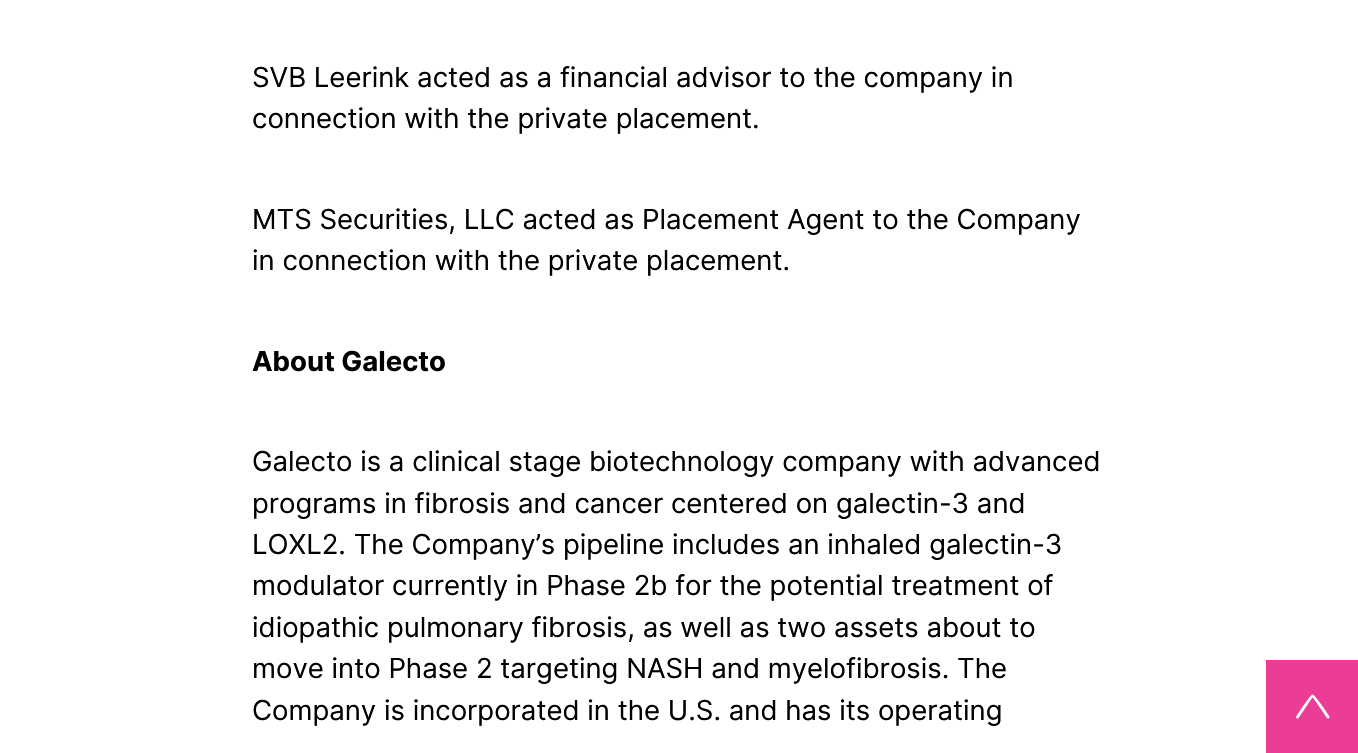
#include "include/core/SkBlurTypes.h"
#include "include/core/SkCanvas.h"
#include "include/core/SkData.h"
#include "include/core/SkFont.h"
#include "include/core/SkFontMgr.h"
#include "include/core/SkImage.h"
#include "include/core/SkMaskFilter.h"
#include "include/core/SkPaint.h"
#include "include/core/SkPathBuilder.h"
#include "include/core/SkTextBlob.h"
#include "include/effects/SkDashPathEffect.h"
#include "include/effects/SkGradientShader.h"
#include "include/utils/SkParsePath.h"

extern sk_sp<SkFontMgr> fontMgr;

static SkFont font(const char* family, int weight, float size, bool italic = false) {
    SkFontStyle style(weight, SkFontStyle::kNormal_Width,
        italic ? SkFontStyle::kItalic_Slant : SkFontStyle::kUpright_Slant);
    SkFont result(fontMgr->matchFamilyStyle(family, style), size);
    result.setSubpixel(true);
    return result;
}

static void drawLabel(SkCanvas* canvas, const char* s, float x, float y, const SkFont& font, SkColor color) {
    SkPaint ink(SkColor4f::FromColor(color));
    ink.setAntiAlias(true);
    canvas->drawString(s, x, y, font, ink);
}

static void fillRect(SkCanvas* canvas, float x, float y, float w, float h, SkColor color) {
    SkPaint ink(SkColor4f::FromColor(color));
    ink.setAntiAlias(true);
    canvas->drawRect(SkRect::MakeXYWH(x, y, w, h), ink);
}

static SkPath parsePath(const char* data, bool evenOdd = false) {
    SkPath result = *SkParsePath::FromSVGString(data);
    if (evenOdd) result.setFillType(SkPathFillType::kEvenOdd);
    return result;
}

void draw(SkCanvas* canvas) {
    SkPaint paint;
    paint.setAntiAlias(true);
    canvas->clear(0xFFFFFFFF);
    SkFont font1 = font("Inter", 400, 27.55f);
    drawLabel(canvas, "SVB Leerink acted as a financial advisor to the company in", 252, 87, font1, 0xFF000000);
    drawLabel(canvas, "connection with the private placement.", 252, 128, font1, 0xFF000000);
    drawLabel(canvas, "MTS Securities, LLC acted as Placement Agent to the Company", 252, 229, font1, 0xFF000000);
    drawLabel(canvas, "in connection with the private placement.", 252, 270, font1, 0xFF000000);
    SkFont font2 = font("Inter", 700, 27.55f);
    drawLabel(canvas, "About Galecto", 252, 371, font2, 0xFF000000);
    drawLabel(canvas, "Galecto is a clinical stage biotechnology company with advanced", 252, 471, font1, 0xFF000000);
    drawLabel(canvas, "programs in fibrosis and cancer centered on galectin-3 and", 252, 513, font1, 0xFF000000);
    drawLabel(canvas, "LOXL2. The Company’s pipeline includes an inhaled galectin-3", 252, 554, font1, 0xFF000000);
    drawLabel(canvas, "modulator currently in Phase 2b for the potential treatment of", 252, 595, font1, 0xFF000000);
    drawLabel(canvas, "idiopathic pulmonary fibrosis, as well as two assets about to", 252, 637, font1, 0xFF000000);
    drawLabel(canvas, "move into Phase 2 targeting NASH and myelofibrosis. The", 252, 678, font1, 0xFF000000);
    drawLabel(canvas, "Company is incorporated in the U.S. and has its operating", 252, 720, font1, 0xFF000000);
    fillRect(canvas, 1266, 660, 92, 93, 0xFFEB3C96);
    paint.setStroke(true);
    paint.setStrokeWidth(3);
    paint.setStrokeCap(SkPaint::kRound_Cap);
    paint.setColor(0xFFFFFFFF);
    canvas->drawPath(parsePath("M1328 717C1328 717 1314 696 1312.5 696C1311.5 696 1297.5 717 1297.5 717"), paint);
}
